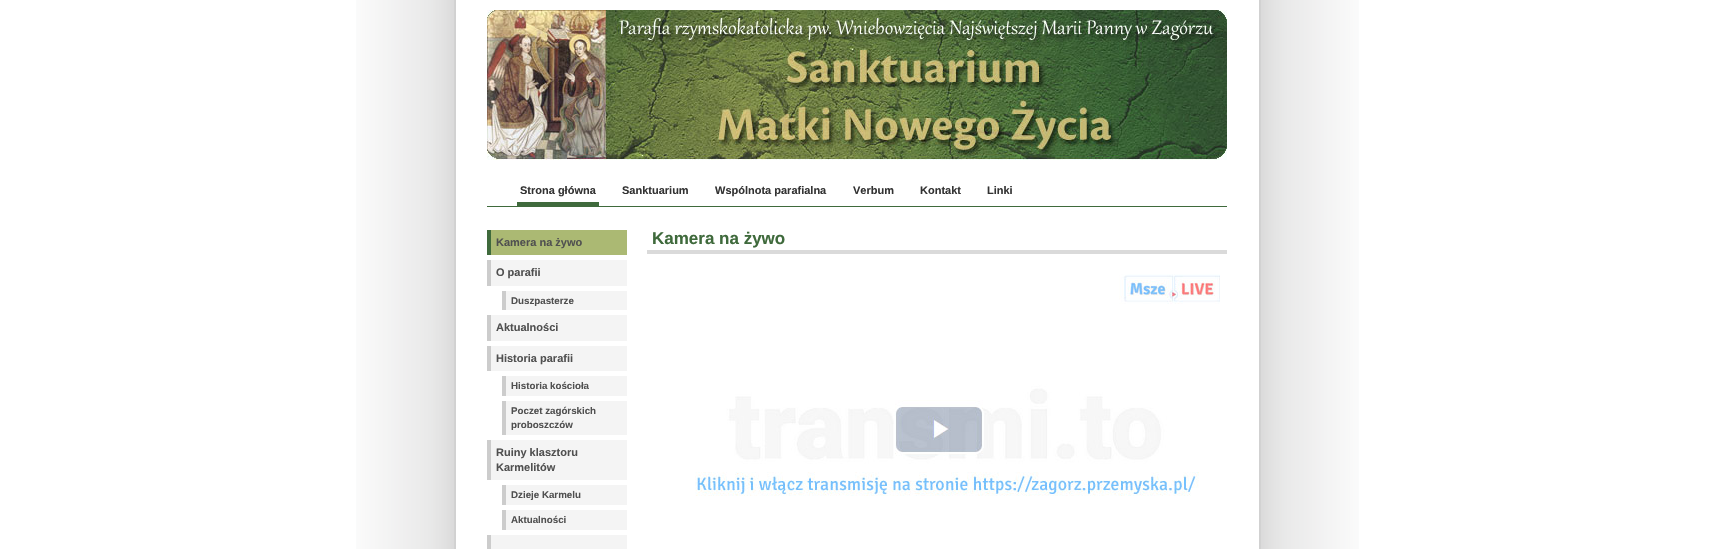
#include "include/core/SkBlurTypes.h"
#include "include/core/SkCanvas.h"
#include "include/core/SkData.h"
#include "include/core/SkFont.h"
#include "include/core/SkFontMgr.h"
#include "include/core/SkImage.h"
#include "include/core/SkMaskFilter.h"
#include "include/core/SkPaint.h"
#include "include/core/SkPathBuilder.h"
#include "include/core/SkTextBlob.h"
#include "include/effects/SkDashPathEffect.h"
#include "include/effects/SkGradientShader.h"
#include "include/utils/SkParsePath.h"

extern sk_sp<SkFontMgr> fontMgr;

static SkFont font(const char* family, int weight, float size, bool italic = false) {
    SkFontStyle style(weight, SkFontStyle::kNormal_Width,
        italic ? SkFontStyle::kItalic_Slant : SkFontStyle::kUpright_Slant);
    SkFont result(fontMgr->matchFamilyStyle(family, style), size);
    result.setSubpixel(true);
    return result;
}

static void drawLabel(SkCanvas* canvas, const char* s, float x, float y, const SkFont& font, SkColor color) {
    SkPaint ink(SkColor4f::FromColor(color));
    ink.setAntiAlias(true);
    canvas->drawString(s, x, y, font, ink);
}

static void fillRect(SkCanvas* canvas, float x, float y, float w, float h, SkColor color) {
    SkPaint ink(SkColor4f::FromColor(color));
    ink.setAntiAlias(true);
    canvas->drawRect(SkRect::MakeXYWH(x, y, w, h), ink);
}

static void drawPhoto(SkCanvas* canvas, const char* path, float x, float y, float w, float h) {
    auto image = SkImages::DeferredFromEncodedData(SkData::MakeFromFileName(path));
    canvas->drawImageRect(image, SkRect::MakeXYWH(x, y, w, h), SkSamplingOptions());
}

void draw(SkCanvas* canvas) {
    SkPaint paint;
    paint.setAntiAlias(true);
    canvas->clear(0xFFFFFFFF);
    drawPhoto(canvas, "assets/img1.png", 356, 0, 1003, 549);
    drawPhoto(canvas, "assets/img2.png", 487, 10, 740, 150);
    fillRect(canvas, 487, 206, 740, 1, 0xFF3F6A3C);
    fillRect(canvas, 517, 202, 82, 4, 0xFF3F6A3C);
    SkFont font1 = font("Liberation Sans", 700, 11);
    drawLabel(canvas, "Strona główna", 520, 194, font1, 0xFF333333);
    drawLabel(canvas, "Sanktuarium", 622, 194, font1, 0xFF333333);
    drawLabel(canvas, "Wspólnota parafialna", 715, 194, font1, 0xFF333333);
    drawLabel(canvas, "Verbum", 853, 194, font1, 0xFF333333);
    drawLabel(canvas, "Kontakt", 920, 194, font1, 0xFF333333);
    drawLabel(canvas, "Linki", 987, 194, font1, 0xFF333333);
    fillRect(canvas, 647, 250, 580, 4, 0xFFDADADA);
    SkFont font2 = font("Liberation Sans", 700, 17);
    drawLabel(canvas, "Kamera na żywo", 652, 244, font2, 0xFF3F6A3C);
    drawPhoto(canvas, "assets/img3.png", 695, 274, 525, 222);
    fillRect(canvas, 491, 230, 136, 25, 0xFFABB973);
    fillRect(canvas, 487, 230, 4, 25, 0xFF3F6A3C);
    drawLabel(canvas, "Kamera na żywo", 496, 246, font1, 0xFF505050);
    fillRect(canvas, 491, 260, 136, 26, 0xFFF4F4F4);
    fillRect(canvas, 487, 260, 4, 26, 0xFFCCCCCC);
    drawLabel(canvas, "O parafii", 496, 276, font1, 0xFF505050);
    fillRect(canvas, 506, 291, 121, 19, 0xFFF4F4F4);
    fillRect(canvas, 502, 291, 4, 19, 0xFFCCCCCC);
    SkFont font3 = font("Liberation Sans", 700, 9.75f);
    drawLabel(canvas, "Duszpasterze", 511, 304, font3, 0xFF505050);
    fillRect(canvas, 491, 315, 136, 26, 0xFFF4F4F4);
    fillRect(canvas, 487, 315, 4, 26, 0xFFCCCCCC);
    drawLabel(canvas, "Aktualności", 496, 331, font1, 0xFF505050);
    fillRect(canvas, 491, 346, 136, 25, 0xFFF4F4F4);
    fillRect(canvas, 487, 346, 4, 25, 0xFFCCCCCC);
    drawLabel(canvas, "Historia parafii", 496, 362, font1, 0xFF505050);
    fillRect(canvas, 506, 376, 121, 20, 0xFFF4F4F4);
    fillRect(canvas, 502, 376, 4, 20, 0xFFCCCCCC);
    drawLabel(canvas, "Historia kościoła", 511, 389, font3, 0xFF505050);
    fillRect(canvas, 506, 401, 121, 34, 0xFFF4F4F4);
    fillRect(canvas, 502, 401, 4, 34, 0xFFCCCCCC);
    drawLabel(canvas, "Poczet zagórskich", 511, 414, font3, 0xFF505050);
    drawLabel(canvas, "proboszczów", 511, 428, font3, 0xFF505050);
    fillRect(canvas, 491, 440, 136, 40, 0xFFF4F4F4);
    fillRect(canvas, 487, 440, 4, 40, 0xFFCCCCCC);
    drawLabel(canvas, "Ruiny klasztoru", 496, 456, font1, 0xFF505050);
    drawLabel(canvas, "Karmelitów", 496, 471, font1, 0xFF505050);
    fillRect(canvas, 506, 485, 121, 20, 0xFFF4F4F4);
    fillRect(canvas, 502, 485, 4, 20, 0xFFCCCCCC);
    drawLabel(canvas, "Dzieje Karmelu", 511, 498, font3, 0xFF505050);
    fillRect(canvas, 506, 510, 121, 20, 0xFFF4F4F4);
    fillRect(canvas, 502, 510, 4, 20, 0xFFCCCCCC);
    drawLabel(canvas, "Aktualności", 511, 523, font3, 0xFF505050);
    fillRect(canvas, 491, 535, 136, 14, 0xFFF4F4F4);
    fillRect(canvas, 487, 535, 4, 14, 0xFFCCCCCC);
}
